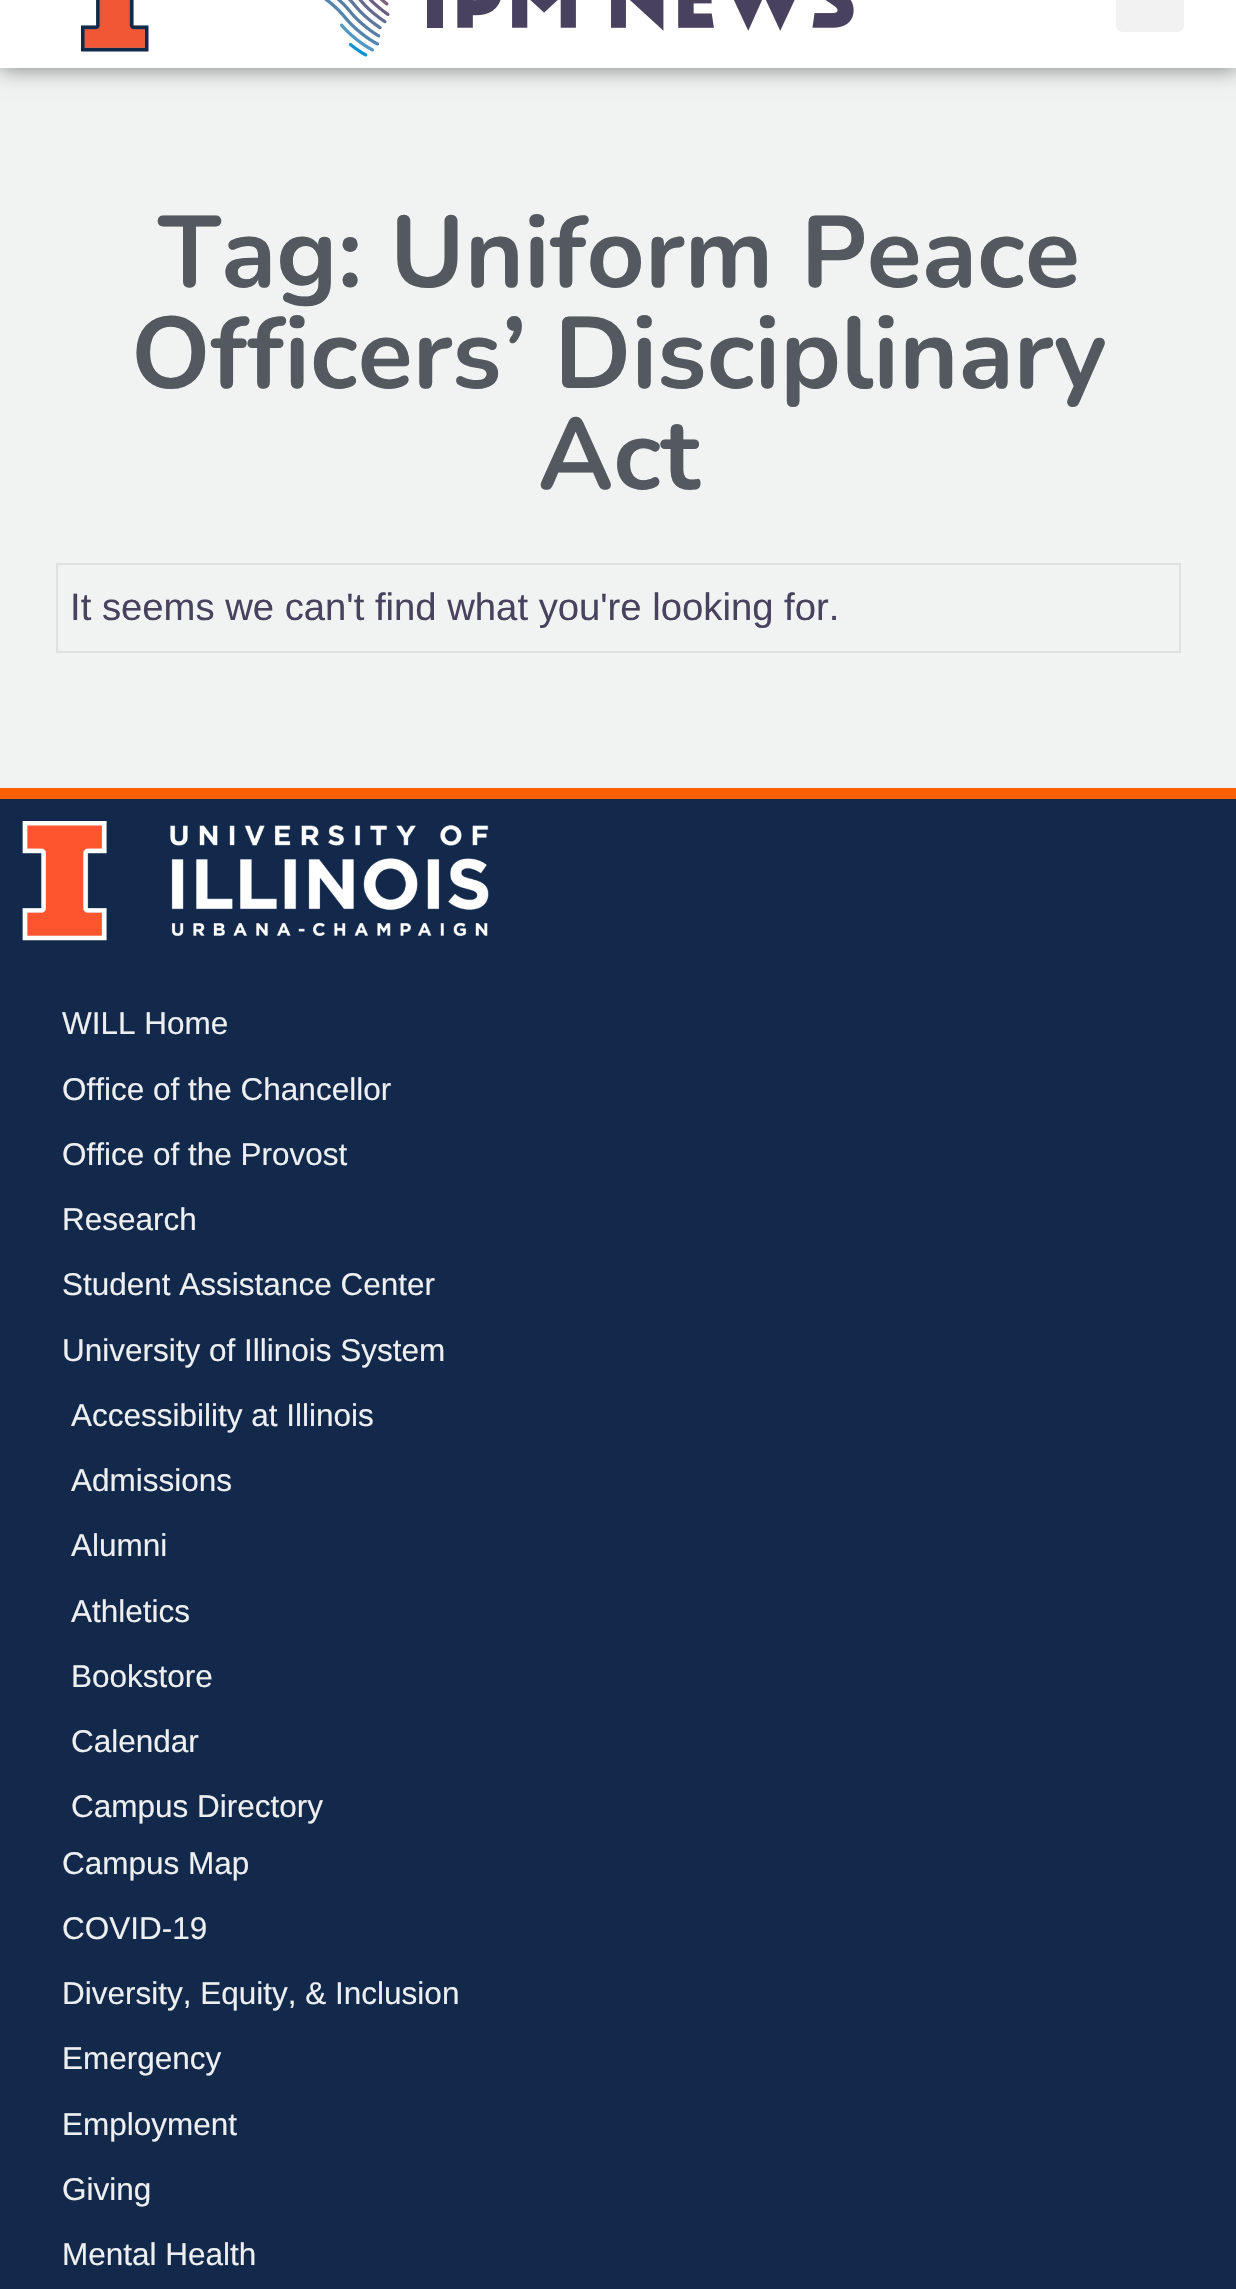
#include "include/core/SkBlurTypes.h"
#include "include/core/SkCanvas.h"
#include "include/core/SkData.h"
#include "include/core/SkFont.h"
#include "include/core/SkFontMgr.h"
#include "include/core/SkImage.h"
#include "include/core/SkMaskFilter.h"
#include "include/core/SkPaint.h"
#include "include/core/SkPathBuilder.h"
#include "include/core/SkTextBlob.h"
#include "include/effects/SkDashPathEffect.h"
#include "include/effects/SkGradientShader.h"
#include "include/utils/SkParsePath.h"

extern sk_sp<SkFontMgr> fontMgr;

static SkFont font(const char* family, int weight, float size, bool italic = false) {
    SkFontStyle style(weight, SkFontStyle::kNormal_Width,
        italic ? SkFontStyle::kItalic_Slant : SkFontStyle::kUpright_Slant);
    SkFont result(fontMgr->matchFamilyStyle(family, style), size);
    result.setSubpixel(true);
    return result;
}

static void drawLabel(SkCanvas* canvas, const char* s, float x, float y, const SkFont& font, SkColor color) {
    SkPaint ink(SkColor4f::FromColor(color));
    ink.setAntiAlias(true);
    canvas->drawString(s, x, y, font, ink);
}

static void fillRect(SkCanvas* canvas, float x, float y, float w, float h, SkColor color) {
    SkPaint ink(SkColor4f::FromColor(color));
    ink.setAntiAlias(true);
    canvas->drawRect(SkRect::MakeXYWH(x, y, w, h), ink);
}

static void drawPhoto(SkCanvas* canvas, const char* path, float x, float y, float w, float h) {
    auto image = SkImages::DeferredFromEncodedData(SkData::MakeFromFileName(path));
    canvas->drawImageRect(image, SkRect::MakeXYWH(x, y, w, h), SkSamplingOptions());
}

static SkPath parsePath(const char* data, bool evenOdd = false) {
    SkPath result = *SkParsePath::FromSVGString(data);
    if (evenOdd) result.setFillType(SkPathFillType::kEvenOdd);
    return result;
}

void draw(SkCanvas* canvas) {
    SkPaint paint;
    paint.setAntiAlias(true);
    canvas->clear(0xFFF1F3F2);
    paint.setColor(0x80000000);
    paint.setMaskFilter(SkMaskFilter::MakeBlur(kNormal_SkBlurStyle, 11));
    canvas->drawRect(SkRect::MakeXYWH(0, -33, 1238, 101), paint);
    paint.setMaskFilter(nullptr);
    fillRect(canvas, 0, 0, 1236, 68, 0xFFFFFFFF);
    drawPhoto(canvas, "assets/img1.png", 81, 0, 68, 52);
    drawPhoto(canvas, "assets/img2.png", 324, 0, 530, 57);
    paint.setColor(0xFFF2F2F2);
    canvas->drawPath(parsePath("M1116-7H1184V25C1184 29 1181 32 1177 32H1123C1119 32 1116 29 1116 25Z"), paint);
    SkFont font1 = font("Nunito", 200, 101.25f);
    drawLabel(canvas, "Tag: Uniform Peace", 158, 287, font1, 0xFF53595F);
    drawLabel(canvas, "Officers’ Disciplinary", 131, 388, font1, 0xFF53595F);
    drawLabel(canvas, "Act", 538, 489, font1, 0xFF53595F);
    paint.setStroke(true);
    paint.setStrokeWidth(2);
    paint.setColor(0xFFE0E0E0);
    canvas->drawRect(SkRect::MakeXYWH(57, 564, 1123, 88), paint);
    SkFont font2 = font("Liberation Sans", 400, 38.25f);
    drawLabel(canvas, "It seems we can't find what you're looking for.", 70, 620, font2, 0xFF49425F);
    fillRect(canvas, 0, 799, 1236, 1490, 0xFF13294B);
    fillRect(canvas, 0, 788, 1236, 11, 0xFFFF5F05);
    drawPhoto(canvas, "assets/img3.png", 22, 821, 467, 120);
    SkFont font3 = font("Liberation Sans", 400, 31.5f);
    drawLabel(canvas, "WILL Home", 62, 1034, font3, 0xFFEDEFF1);
    drawLabel(canvas, "Office of the Chancellor", 62, 1100, font3, 0xFFEDEFF1);
    drawLabel(canvas, "Office of the Provost", 62, 1165, font3, 0xFFEDEFF1);
    drawLabel(canvas, "Research", 62, 1230, font3, 0xFFEDEFF1);
    drawLabel(canvas, "Student Assistance Center", 62, 1295, font3, 0xFFEDEFF1);
    drawLabel(canvas, "University of Illinois System", 62, 1361, font3, 0xFFEDEFF1);
    drawLabel(canvas, "Accessibility at Illinois", 71, 1426, font3, 0xFFEDEFF1);
    drawLabel(canvas, "Admissions", 71, 1491, font3, 0xFFEDEFF1);
    drawLabel(canvas, "Alumni", 71, 1556, font3, 0xFFEDEFF1);
    drawLabel(canvas, "Athletics", 71, 1622, font3, 0xFFEDEFF1);
    drawLabel(canvas, "Bookstore", 71, 1687, font3, 0xFFEDEFF1);
    drawLabel(canvas, "Calendar", 71, 1752, font3, 0xFFEDEFF1);
    drawLabel(canvas, "Campus Directory", 71, 1817, font3, 0xFFEDEFF1);
    drawLabel(canvas, "Campus Map", 62, 1874, font3, 0xFFEDEFF1);
    drawLabel(canvas, "COVID-19", 62, 1939, font3, 0xFFEDEFF1);
    drawLabel(canvas, "Diversity, Equity, & Inclusion", 62, 2004, font3, 0xFFEDEFF1);
    drawLabel(canvas, "Emergency", 62, 2069, font3, 0xFFEDEFF1);
    drawLabel(canvas, "Employment", 62, 2135, font3, 0xFFEDEFF1);
    drawLabel(canvas, "Giving", 62, 2200, font3, 0xFFEDEFF1);
    drawLabel(canvas, "Mental Health", 62, 2265, font3, 0xFFEDEFF1);
}
